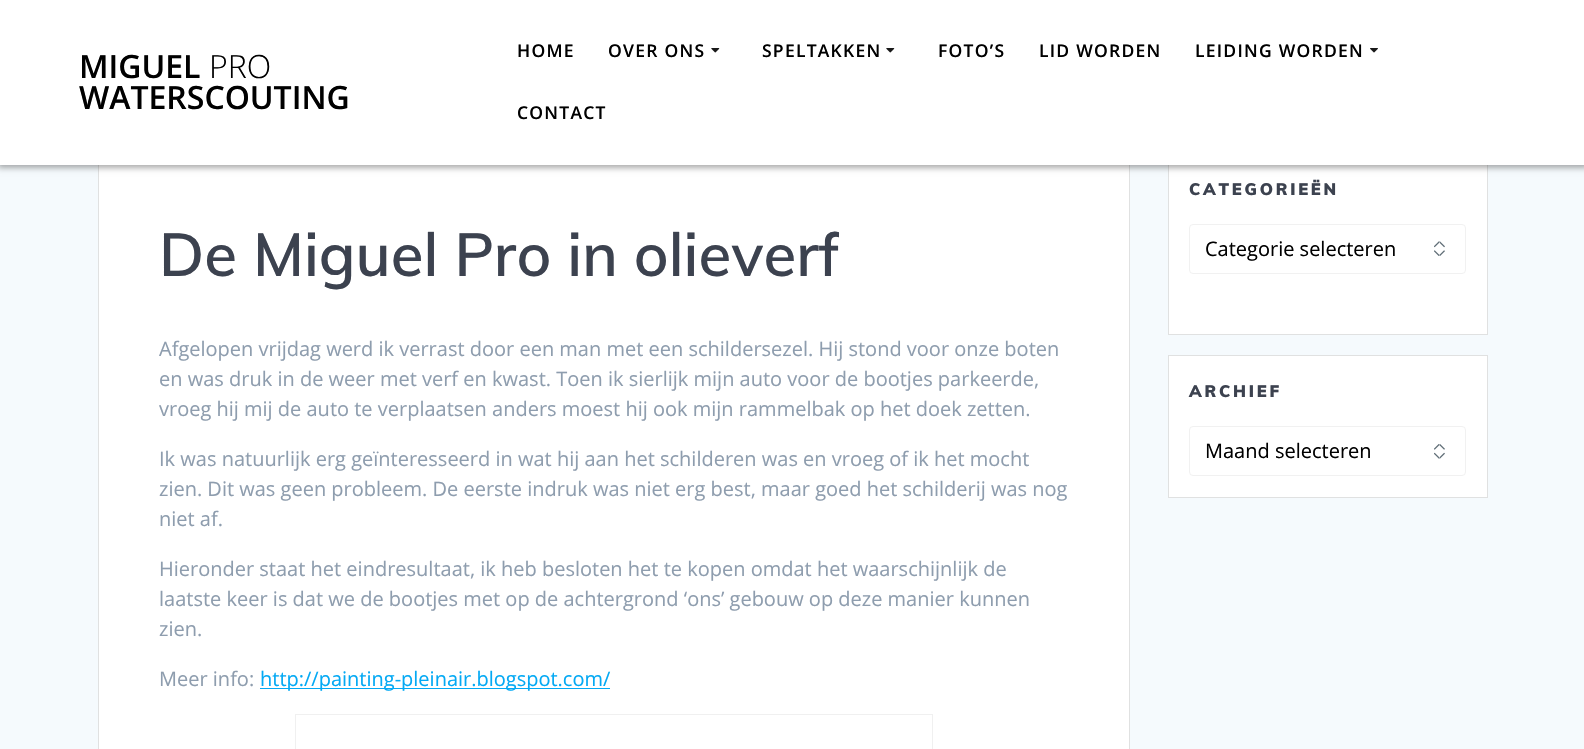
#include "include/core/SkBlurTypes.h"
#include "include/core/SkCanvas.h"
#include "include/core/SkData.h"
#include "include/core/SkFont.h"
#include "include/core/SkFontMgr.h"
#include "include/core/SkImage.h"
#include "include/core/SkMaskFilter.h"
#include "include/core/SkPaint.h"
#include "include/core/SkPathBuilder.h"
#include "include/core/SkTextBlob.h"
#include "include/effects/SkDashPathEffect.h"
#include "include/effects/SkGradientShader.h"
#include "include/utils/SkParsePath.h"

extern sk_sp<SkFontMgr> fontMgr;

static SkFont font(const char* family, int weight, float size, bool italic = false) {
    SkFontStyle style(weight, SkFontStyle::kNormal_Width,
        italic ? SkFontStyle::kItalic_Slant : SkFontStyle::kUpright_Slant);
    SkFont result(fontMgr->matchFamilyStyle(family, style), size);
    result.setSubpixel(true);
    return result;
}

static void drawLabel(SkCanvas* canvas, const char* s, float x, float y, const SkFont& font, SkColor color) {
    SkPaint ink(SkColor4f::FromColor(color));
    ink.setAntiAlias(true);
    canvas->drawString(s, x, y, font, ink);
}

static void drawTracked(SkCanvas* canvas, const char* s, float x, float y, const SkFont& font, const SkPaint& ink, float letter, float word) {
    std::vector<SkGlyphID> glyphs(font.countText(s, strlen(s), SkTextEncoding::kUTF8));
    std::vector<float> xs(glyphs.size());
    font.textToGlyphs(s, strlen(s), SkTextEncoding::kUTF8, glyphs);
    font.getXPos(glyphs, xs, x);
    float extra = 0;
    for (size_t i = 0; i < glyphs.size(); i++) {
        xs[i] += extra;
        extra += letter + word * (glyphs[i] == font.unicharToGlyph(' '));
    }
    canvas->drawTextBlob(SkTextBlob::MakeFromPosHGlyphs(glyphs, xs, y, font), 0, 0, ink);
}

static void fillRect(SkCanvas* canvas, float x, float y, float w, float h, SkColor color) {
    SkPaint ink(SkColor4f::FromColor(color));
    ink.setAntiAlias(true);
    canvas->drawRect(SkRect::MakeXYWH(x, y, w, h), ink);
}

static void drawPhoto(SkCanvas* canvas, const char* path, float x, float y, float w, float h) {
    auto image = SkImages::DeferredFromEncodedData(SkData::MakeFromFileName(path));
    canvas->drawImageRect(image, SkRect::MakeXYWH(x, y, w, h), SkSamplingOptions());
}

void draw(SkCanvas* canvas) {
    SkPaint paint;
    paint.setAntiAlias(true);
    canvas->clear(0xFFF5FAFD);
    fillRect(canvas, 99, 165, 1030, 584, 0xFFFFFFFF);
    paint.setStroke(true);
    paint.setStrokeWidth(1);
    paint.setColor(0xFFE0E1E1);
    canvas->drawRect(SkRect::MakeXYWH(98.5f, 153.5f, 1031, 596), paint);
    fillRect(canvas, 1169, 165, 318, 169, 0xFFFFFFFF);
    canvas->drawRect(SkRect::MakeXYWH(1168.5f, 153.5f, 319, 181), paint);
    paint.setStroke(false);
    paint.setColor(0x54000000);
    paint.setMaskFilter(SkMaskFilter::MakeBlur(kNormal_SkBlurStyle, 3));
    canvas->drawRect(SkRect::MakeXYWH(-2, -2, 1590, 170), paint);
    paint.setMaskFilter(nullptr);
    fillRect(canvas, 0, 0, 1584, 165, 0xFFFFFFFF);
    SkFont font1 = font("Open Sans", 600, 32);
    drawLabel(canvas, "MIGUEL", 79, 78, font1, 0xFF000000);
    SkFont font2 = font("Open Sans", 300, 32);
    drawLabel(canvas, "PRO", 209, 78, font2, 0xFF000000);
    drawLabel(canvas, "WATERSCOUTING", 79, 109, font1, 0xFF000000);
    SkFont font3 = font("Open Sans", 600, 17.5f);
    paint.setColor(0xFF000000);
    drawTracked(canvas, "HOME", 517, 57, font3, paint, 1.25f, 0);
    drawTracked(canvas, "OVER ONS", 608, 57, font3, paint, 1.25f, 0);
    drawPhoto(canvas, "assets/img1.png", 711, 48, 9, 5);
    drawTracked(canvas, "SPELTAKKEN", 762, 57, font3, paint, 1.25f, 0);
    drawPhoto(canvas, "assets/img1.png", 886, 48, 9, 5);
    drawTracked(canvas, "FOTO’S", 938, 57, font3, paint, 1.25f, 0);
    drawTracked(canvas, "LID WORDEN", 1039, 57, font3, paint, 1.25f, 0);
    drawTracked(canvas, "LEIDING WORDEN", 1195, 57, font3, paint, 1.25f, 0);
    drawPhoto(canvas, "assets/img2.png", 1370, 48, 8, 5);
    drawTracked(canvas, "CONTACT", 517, 119, font3, paint, 1.25f, 0);
    SkFont font4 = font("Muli", 600, 60);
    drawLabel(canvas, "De Miguel Pro in olieverf", 159, 276, font4, 0xFF3C424F);
    SkFont font5 = font("Open Sans", 400, 20);
    drawLabel(canvas, "Afgelopen vrijdag werd ik verrast door een man met een schildersezel. Hij stond voor onze boten", 159, 356, font5, 0xFF8E9DAE);
    drawLabel(canvas, "en was druk in de weer met verf en kwast. Toen ik sierlijk mijn auto voor de bootjes parkeerde,", 159, 386, font5, 0xFF8E9DAE);
    drawLabel(canvas, "vroeg hij mij de auto te verplaatsen anders moest hij ook mijn rammelbak op het doek zetten.", 159, 416, font5, 0xFF8E9DAE);
    drawLabel(canvas, "Ik was natuurlijk erg geïnteresseerd in wat hij aan het schilderen was en vroeg of ik het mocht", 159, 466, font5, 0xFF8E9DAE);
    drawLabel(canvas, "zien. Dit was geen probleem. De eerste indruk was niet erg best, maar goed het schilderij was nog", 159, 496, font5, 0xFF8E9DAE);
    drawLabel(canvas, "niet af.", 159, 526, font5, 0xFF8E9DAE);
    drawLabel(canvas, "Hieronder staat het eindresultaat, ik heb besloten het te kopen omdat het waarschijnlijk de", 159, 576, font5, 0xFF8E9DAE);
    drawLabel(canvas, "laatste keer is dat we de bootjes met op de achtergrond ‘ons’ gebouw op deze manier kunnen", 159, 606, font5, 0xFF8E9DAE);
    drawLabel(canvas, "zien.", 159, 636, font5, 0xFF8E9DAE);
    drawLabel(canvas, "Meer info:", 159, 686, font5, 0xFF8E9DAE);
    fillRect(canvas, 260, 688, 350, 1, 0xFF03A9F4);
    drawLabel(canvas, "http://painting-pleinair.blogspot.com/", 260, 686, font5, 0xFF03A9F4);
    paint.setStroke(true);
    paint.setColor(0xFFF0F0F0);
    canvas->drawRect(SkRect::MakeXYWH(295.5f, 714.5f, 637, 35), paint);
    SkFont font6 = font("Muli", 900, 16.5f);
    paint.setStroke(false);
    paint.setColor(0xFF3C424F);
    drawTracked(canvas, "CATEGORIEËN", 1189, 195, font6, paint, 2.75f, 0);
    drawPhoto(canvas, "assets/img3.png", 1434, 241, 11, 15);
    paint.setStroke(true);
    paint.setColor(0xFFF1F1F1);
    canvas->drawRoundRect(SkRect::MakeXYWH(1189.5f, 224.5f, 276, 49), 3.5f, 3.5f, paint);
    drawLabel(canvas, "Categorie selecteren", 1205, 256, font5, 0xFF000000);
    paint.setStroke(false);
    paint.setColor(0xFFFFFFFF);
    canvas->drawRect(SkRect::MakeXYWH(1168.5f, 355.5f, 319, 142), paint);
    paint.setStroke(true);
    paint.setColor(0xFFE0E1E1);
    canvas->drawRect(SkRect::MakeXYWH(1168.5f, 355.5f, 319, 142), paint);
    paint.setStroke(false);
    paint.setColor(0xFF3C424F);
    drawTracked(canvas, "ARCHIEF", 1189, 397, font6, paint, 2.75f, 0);
    drawPhoto(canvas, "assets/img4.png", 1434, 444, 11, 15);
    paint.setStroke(true);
    paint.setColor(0xFFF1F1F1);
    canvas->drawRoundRect(SkRect::MakeXYWH(1189.5f, 426.5f, 276, 49), 3.5f, 3.5f, paint);
    drawLabel(canvas, "Maand selecteren", 1205, 458, font5, 0xFF000000);
}
